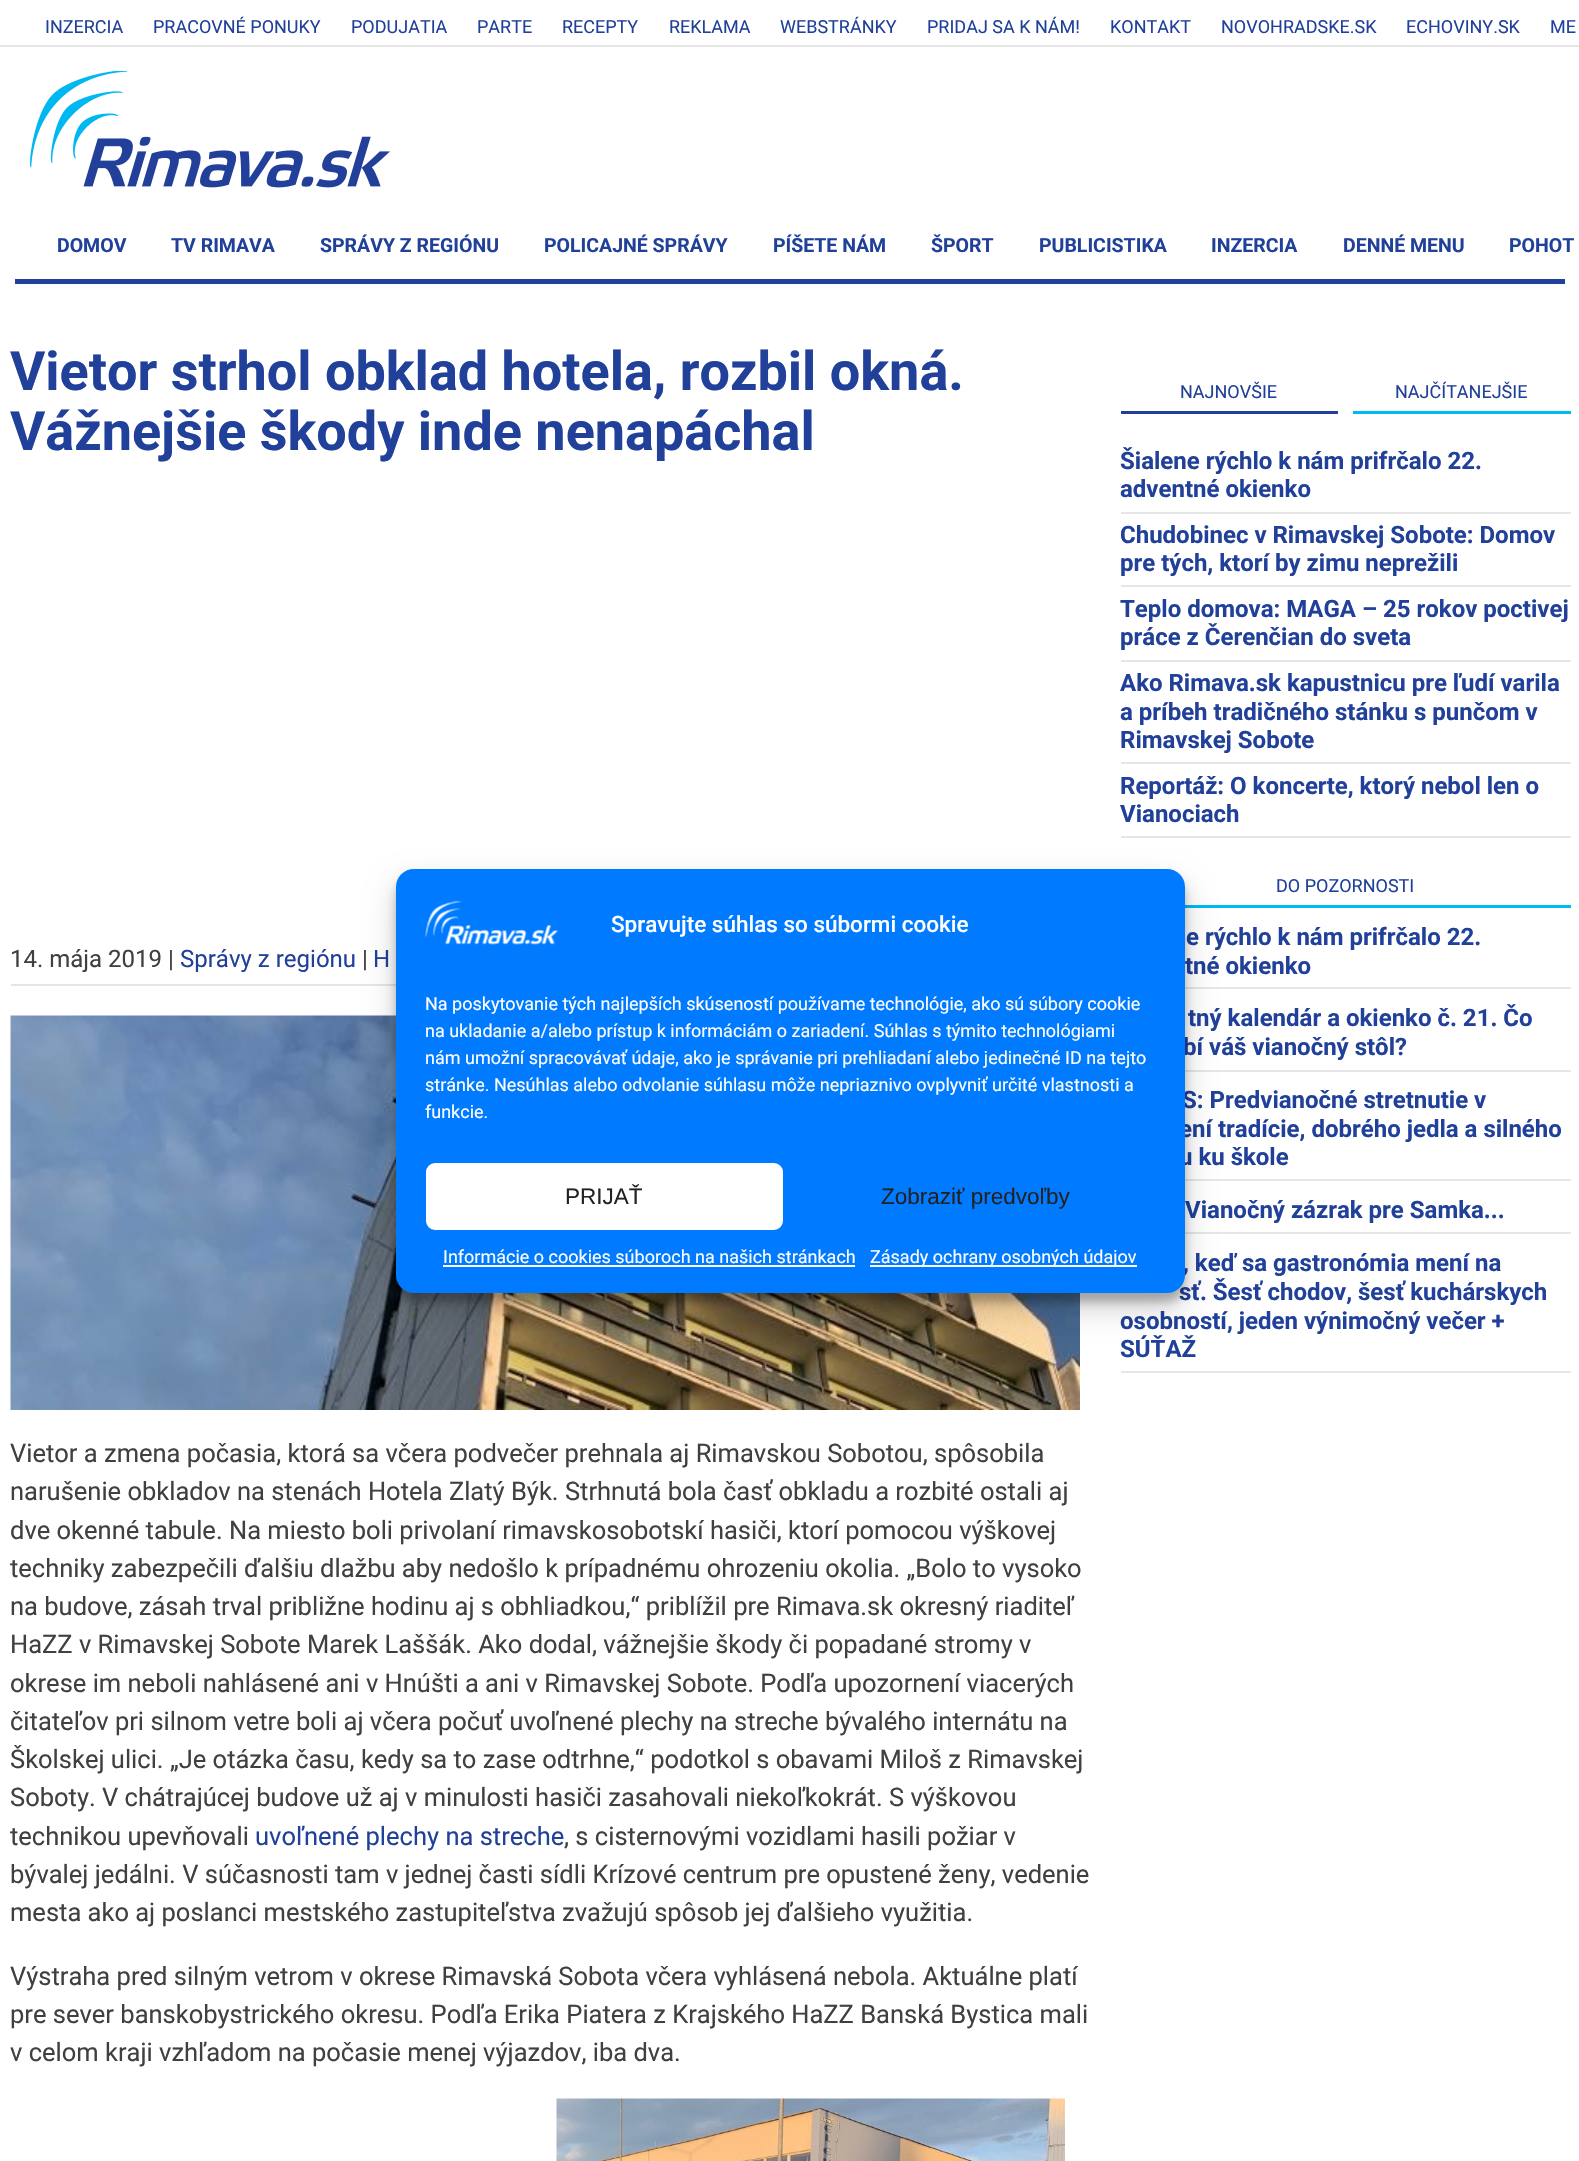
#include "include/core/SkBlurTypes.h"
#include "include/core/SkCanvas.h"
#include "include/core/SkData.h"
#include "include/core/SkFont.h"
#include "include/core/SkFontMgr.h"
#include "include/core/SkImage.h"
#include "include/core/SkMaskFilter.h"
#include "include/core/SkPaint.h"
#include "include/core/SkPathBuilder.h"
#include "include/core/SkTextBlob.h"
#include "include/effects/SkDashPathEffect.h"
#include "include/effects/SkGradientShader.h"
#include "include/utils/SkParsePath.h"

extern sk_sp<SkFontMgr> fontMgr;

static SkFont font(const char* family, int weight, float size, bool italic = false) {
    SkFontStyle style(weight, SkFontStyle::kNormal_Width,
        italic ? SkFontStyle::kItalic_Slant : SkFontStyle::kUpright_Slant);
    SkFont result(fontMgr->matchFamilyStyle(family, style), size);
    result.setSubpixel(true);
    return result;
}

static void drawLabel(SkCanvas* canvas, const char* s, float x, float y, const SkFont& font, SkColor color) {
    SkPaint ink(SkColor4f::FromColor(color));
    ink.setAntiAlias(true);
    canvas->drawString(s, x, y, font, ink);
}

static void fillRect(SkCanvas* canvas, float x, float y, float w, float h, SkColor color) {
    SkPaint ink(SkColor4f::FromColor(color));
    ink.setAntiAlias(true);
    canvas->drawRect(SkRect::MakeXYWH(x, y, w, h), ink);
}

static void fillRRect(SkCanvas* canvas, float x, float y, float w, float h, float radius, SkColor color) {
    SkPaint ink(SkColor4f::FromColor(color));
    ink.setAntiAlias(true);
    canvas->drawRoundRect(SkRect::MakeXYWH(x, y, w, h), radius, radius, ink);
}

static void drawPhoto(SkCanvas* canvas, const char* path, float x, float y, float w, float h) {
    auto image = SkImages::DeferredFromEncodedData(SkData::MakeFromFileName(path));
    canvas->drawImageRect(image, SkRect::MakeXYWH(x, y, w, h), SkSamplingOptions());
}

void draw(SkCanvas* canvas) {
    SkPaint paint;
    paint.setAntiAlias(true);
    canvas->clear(0xFFFFFFFF);
    fillRect(canvas, 0, 45, 1579, 2, 0xFFE6E6E6);
    SkFont font1 = font("Roboto", 400, 18);
    drawLabel(canvas, "INZERCIA", 45, 33, font1, 0xFF20409A);
    drawLabel(canvas, "PRACOVNÉ PONUKY", 153, 33, font1, 0xFF20409A);
    drawLabel(canvas, "PODUJATIA", 351, 33, font1, 0xFF20409A);
    drawLabel(canvas, "PARTE", 477, 33, font1, 0xFF20409A);
    drawLabel(canvas, "RECEPTY", 562, 33, font1, 0xFF20409A);
    drawLabel(canvas, "REKLAMA", 669, 33, font1, 0xFF20409A);
    drawLabel(canvas, "WEBSTRÁNKY", 780, 33, font1, 0xFF20409A);
    drawLabel(canvas, "PRIDAJ SA K NÁM!", 927, 33, font1, 0xFF20409A);
    drawLabel(canvas, "KONTAKT", 1110, 33, font1, 0xFF20409A);
    drawLabel(canvas, "NOVOHRADSKE.SK", 1221, 33, font1, 0xFF20409A);
    drawLabel(canvas, "ECHOVINY.SK", 1406, 33, font1, 0xFF20409A);
    drawLabel(canvas, "ME", 1550, 33, font1, 0xFF20409A);
    drawPhoto(canvas, "assets/img1.png", 30, 71, 360, 117);
    SkFont font2 = font("Roboto", 700, 19.5f);
    drawLabel(canvas, "DOMOV", 57, 252, font2, 0xFF20409A);
    drawLabel(canvas, "TV RIMAVA", 171, 252, font2, 0xFF20409A);
    drawLabel(canvas, "SPRÁVY Z REGIÓNU", 320, 252, font2, 0xFF20409A);
    drawLabel(canvas, "POLICAJNÉ SPRÁVY", 544, 252, font2, 0xFF20409A);
    drawLabel(canvas, "PÍŠETE NÁM", 773, 252, font2, 0xFF20409A);
    drawLabel(canvas, "ŠPORT", 931, 252, font2, 0xFF20409A);
    drawLabel(canvas, "PUBLICISTIKA", 1039, 252, font2, 0xFF20409A);
    drawLabel(canvas, "INZERCIA", 1211, 252, font2, 0xFF20409A);
    drawLabel(canvas, "DENNÉ MENU", 1343, 252, font2, 0xFF20409A);
    drawLabel(canvas, "POHOT", 1509, 252, font2, 0xFF20409A);
    fillRect(canvas, 15, 279, 1550, 5, 0xFF20409A);
    SkFont font3 = font("Roboto", 700, 54);
    drawLabel(canvas, "Vietor strhol obklad hotela, rozbil okná.", 10, 390, font3, 0xFF20409A);
    drawLabel(canvas, "Vážnejšie škody inde nenapáchal", 10, 450, font3, 0xFF20409A);
    fillRect(canvas, 11, 984, 385, 2, 0xFFE6E6E6);
    SkFont font4 = font("Roboto", 400, 24);
    drawLabel(canvas, "14. mája 2019 |", 10, 967, font4, 0xFF404040);
    drawLabel(canvas, "Správy z regiónu", 180, 967, font4, 0xFF20409A);
    drawLabel(canvas, "|", 362, 967, font4, 0xFF404040);
    drawLabel(canvas, "H", 373, 967, font4, 0xFF20409A);
    drawPhoto(canvas, "assets/img2.png", 10, 1015, 1070, 395);
    SkFont font5 = font("Roboto", 400, 25.5f);
    drawLabel(canvas, "Vietor a zmena počasia, ktorá sa včera podvečer prehnala aj Rimavskou Sobotou, spôsobila", 10, 1462, font5, 0xFF404040);
    drawLabel(canvas, "narušenie obkladov na stenách Hotela Zlatý Býk. Strhnutá bola časť obkladu a rozbité ostali aj", 10, 1500, font5, 0xFF404040);
    drawLabel(canvas, "dve okenné tabule. Na miesto boli privolaní rimavskosobotskí hasiči, ktorí pomocou výškovej", 10, 1539, font5, 0xFF404040);
    drawLabel(canvas, "techniky zabezpečili ďalšiu dlažbu aby nedošlo k prípadnému ohrozeniu okolia. „Bolo to vysoko", 10, 1577, font5, 0xFF404040);
    drawLabel(canvas, "na budove, zásah trval približne hodinu aj s obhliadkou,“ priblížil pre Rimava.sk okresný riaditeľ", 10, 1615, font5, 0xFF404040);
    drawLabel(canvas, "HaZZ v Rimavskej Sobote Marek Laššák. Ako dodal, vážnejšie škody či popadané stromy v", 10, 1653, font5, 0xFF404040);
    drawLabel(canvas, "okrese im neboli nahlásené ani v Hnúšti a ani v Rimavskej Sobote. Podľa upozornení viacerých", 10, 1692, font5, 0xFF404040);
    drawLabel(canvas, "čitateľov pri silnom vetre boli aj včera počuť uvoľnené plechy na streche bývalého internátu na", 10, 1730, font5, 0xFF404040);
    drawLabel(canvas, "Školskej ulici. „Je otázka času, kedy sa to zase odtrhne,“ podotkol s obavami Miloš z Rimavskej", 10, 1768, font5, 0xFF404040);
    drawLabel(canvas, "Soboty. V chátrajúcej budove už aj v minulosti hasiči zasahovali niekoľkokrát. S výškovou", 10, 1806, font5, 0xFF404040);
    drawLabel(canvas, "technikou upevňovali", 10, 1845, font5, 0xFF404040);
    drawLabel(canvas, "uvoľnené plechy na streche", 255, 1845, font5, 0xFF20409A);
    drawLabel(canvas, ", s cisternovými vozidlami hasili požiar v", 564, 1845, font5, 0xFF404040);
    drawLabel(canvas, "bývalej jedálni. V súčasnosti tam v jednej časti sídli Krízové centrum pre opustené ženy, vedenie", 10, 1883, font5, 0xFF404040);
    drawLabel(canvas, "mesta ako aj poslanci mestského zastupiteľstva zvažujú spôsob jej ďalšieho využitia.", 10, 1921, font5, 0xFF404040);
    drawLabel(canvas, "Výstraha pred silným vetrom v okrese Rimavská Sobota včera vyhlásená nebola. Aktuálne platí", 10, 1985, font5, 0xFF404040);
    drawLabel(canvas, "pre sever banskobystrického okresu. Podľa Erika Piatera z Krajského HaZZ Banská Bystica mali", 10, 2023, font5, 0xFF404040);
    drawLabel(canvas, "v celom kraji vzhľadom na počasie menej výjazdov, iba dva.", 10, 2061, font5, 0xFF404040);
    drawPhoto(canvas, "assets/img3.png", 556, 2098, 509, 63);
    fillRect(canvas, 1121, 411, 217, 3, 0xFF20409A);
    drawLabel(canvas, "NAJNOVŠIE", 1180, 398, font1, 0xFF20409A);
    fillRect(canvas, 1353, 411, 218, 3, 0xFF00BAF2);
    drawLabel(canvas, "NAJČÍTANEJŠIE", 1395, 398, font1, 0xFF20409A);
    fillRect(canvas, 1121, 512, 450, 2, 0xFFE6E6E6);
    SkFont font6 = font("Roboto", 700, 24);
    drawLabel(canvas, "Šialene rýchlo k nám prifrčalo 22.", 1120, 469, font6, 0xFF20409A);
    drawLabel(canvas, "adventné okienko", 1120, 497, font6, 0xFF20409A);
    fillRect(canvas, 1121, 585, 450, 2, 0xFFE6E6E6);
    drawLabel(canvas, "Chudobinec v Rimavskej Sobote: Domov", 1120, 543, font6, 0xFF20409A);
    drawLabel(canvas, "pre tých, ktorí by zimu neprežili", 1120, 571, font6, 0xFF20409A);
    fillRect(canvas, 1121, 660, 450, 2, 0xFFE6E6E6);
    drawLabel(canvas, "Teplo domova: MAGA – 25 rokov poctivej", 1120, 617, font6, 0xFF20409A);
    drawLabel(canvas, "práce z Čerenčian do sveta", 1120, 645, font6, 0xFF20409A);
    fillRect(canvas, 1121, 762, 450, 2, 0xFFE6E6E6);
    drawLabel(canvas, "Ako Rimava.sk kapustnicu pre ľudí varila", 1120, 691, font6, 0xFF20409A);
    drawLabel(canvas, "a príbeh tradičného stánku s punčom v", 1120, 720, font6, 0xFF20409A);
    drawLabel(canvas, "Rimavskej Sobote", 1120, 748, font6, 0xFF20409A);
    fillRect(canvas, 1121, 836, 450, 2, 0xFFE6E6E6);
    drawLabel(canvas, "Reportáž: O koncerte, ktorý nebol len o", 1120, 794, font6, 0xFF20409A);
    drawLabel(canvas, "Vianociach", 1120, 822, font6, 0xFF20409A);
    fillRect(canvas, 1185, 905, 386, 3, 0xFF00BAF2);
    drawLabel(canvas, "DO POZORNOSTI", 1276, 892, font1, 0xFF20409A);
    fillRect(canvas, 1185, 987, 386, 2, 0xFFE6E6E6);
    drawLabel(canvas, "e rýchlo k nám prifrčalo 22.", 1186, 945, font6, 0xFF20409A);
    drawLabel(canvas, "tné okienko", 1185, 974, font6, 0xFF20409A);
    fillRect(canvas, 1185, 1070, 386, 2, 0xFFE6E6E6);
    drawLabel(canvas, "tný kalendár a okienko č. 21. Čo", 1188, 1026, font6, 0xFF20409A);
    drawLabel(canvas, "bí váš vianočný stôl?", 1183, 1055, font6, 0xFF20409A);
    fillRect(canvas, 1185, 1179, 386, 2, 0xFFE6E6E6);
    drawLabel(canvas, "S: Predvianočné stretnutie v", 1182, 1108, font6, 0xFF20409A);
    drawLabel(canvas, "ení tradície, dobrého jedla a silného", 1179, 1137, font6, 0xFF20409A);
    drawLabel(canvas, "u ku škole", 1179, 1165, font6, 0xFF20409A);
    fillRect(canvas, 1185, 1232, 386, 2, 0xFFE6E6E6);
    drawLabel(canvas, "Vianočný zázrak pre Samka...", 1185, 1218, font6, 0xFF20409A);
    fillRect(canvas, 1121, 1371, 450, 2, 0xFFE6E6E6);
    drawLabel(canvas, ", keď sa gastronómia mení na", 1183, 1271, font6, 0xFF20409A);
    drawLabel(canvas, "sť. Šesť chodov, šesť kuchárskych", 1179, 1300, font6, 0xFF20409A);
    drawLabel(canvas, "osobností, jeden výnimočný večer +", 1120, 1329, font6, 0xFF20409A);
    drawLabel(canvas, "SÚŤAŽ", 1120, 1357, font6, 0xFF20409A);
    paint.setColor(0x3B000000);
    paint.setMaskFilter(SkMaskFilter::MakeBlur(kNormal_SkBlurStyle, 4.5f));
    canvas->drawRoundRect(SkRect::MakeXYWH(396, 878, 789, 424), 18, 18, paint);
    paint.setMaskFilter(nullptr);
    paint.setColor(0x30000000);
    paint.setMaskFilter(SkMaskFilter::MakeBlur(kNormal_SkBlurStyle, 15));
    canvas->drawRoundRect(SkRect::MakeXYWH(396, 884, 789, 424), 18, 18, paint);
    paint.setMaskFilter(nullptr);
    fillRRect(canvas, 396, 869, 789, 424, 18, 0xFF007AFF);
    drawPhoto(canvas, "assets/img4.png", 425, 900, 133, 45);
    SkFont font7 = font("Roboto", 500, 22.5f);
    drawLabel(canvas, "Spravujte súhlas so súbormi cookie", 611, 932, font7, 0xFFFFFFFF);
    drawLabel(canvas, "Na poskytovanie tých najlepších skúseností používame technológie, ako sú súbory cookie", 425, 1010, font1, 0xFFFFFFFF);
    drawLabel(canvas, "na ukladanie a/alebo prístup k informáciám o zariadení. Súhlas s týmito technológiami", 425, 1037, font1, 0xFFFFFFFF);
    drawLabel(canvas, "nám umožní spracovávať údaje, ako je správanie pri prehliadaní alebo jedinečné ID na tejto", 425, 1064, font1, 0xFFFFFFFF);
    drawLabel(canvas, "stránke. Nesúhlas alebo odvolanie súhlasu môže nepriaznivo ovplyvniť určité vlastnosti a", 425, 1091, font1, 0xFFFFFFFF);
    drawLabel(canvas, "funkcie.", 425, 1118, font1, 0xFFFFFFFF);
    paint.setColor(0xFFFFFFFF);
    canvas->drawRoundRect(SkRect::MakeXYWH(427, 1164, 355, 65), 8, 8, paint);
    paint.setStroke(true);
    paint.setStrokeWidth(2);
    canvas->drawRoundRect(SkRect::MakeXYWH(427, 1164, 355, 65), 8, 8, paint);
    SkFont font8 = font("Liberation Sans", 400, 22.5f);
    drawLabel(canvas, "PRIJAŤ", 565, 1204, font8, 0xFF222222);
    drawLabel(canvas, "Zobraziť predvoľby", 881, 1204, font8, 0xFF222222);
    drawLabel(canvas, "Informácie o cookies súboroch na našich stránkach", 443, 1263, font1, 0xFFFFFFFF);
    fillRect(canvas, 443, 1265, 412, 2, 0xFFFFFFFF);
    fillRect(canvas, 870, 1265, 267, 2, 0xFFFFFFFF);
    drawLabel(canvas, "Zásady ochrany osobných údajov", 870, 1263, font1, 0xFFFFFFFF);
}
